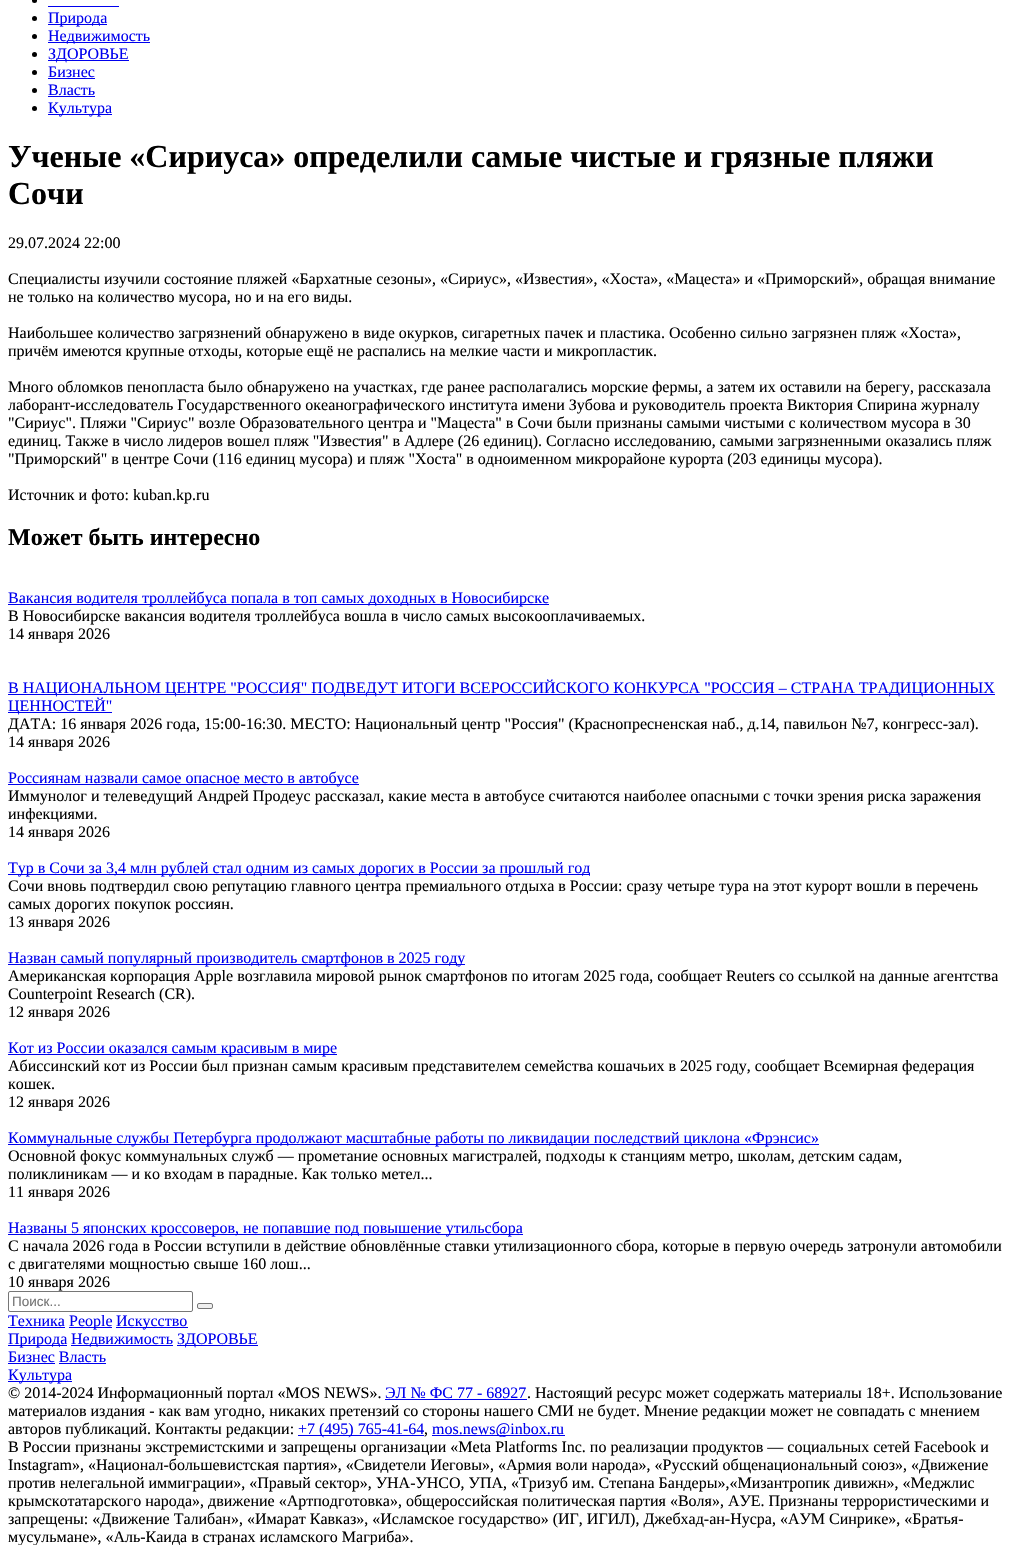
#include "include/core/SkBlurTypes.h"
#include "include/core/SkCanvas.h"
#include "include/core/SkData.h"
#include "include/core/SkFont.h"
#include "include/core/SkFontMgr.h"
#include "include/core/SkImage.h"
#include "include/core/SkMaskFilter.h"
#include "include/core/SkPaint.h"
#include "include/core/SkPathBuilder.h"
#include "include/core/SkTextBlob.h"
#include "include/effects/SkDashPathEffect.h"
#include "include/effects/SkGradientShader.h"
#include "include/utils/SkParsePath.h"

extern sk_sp<SkFontMgr> fontMgr;

static SkFont font(const char* family, int weight, float size, bool italic = false) {
    SkFontStyle style(weight, SkFontStyle::kNormal_Width,
        italic ? SkFontStyle::kItalic_Slant : SkFontStyle::kUpright_Slant);
    SkFont result(fontMgr->matchFamilyStyle(family, style), size);
    result.setSubpixel(true);
    return result;
}

static void drawLabel(SkCanvas* canvas, const char* s, float x, float y, const SkFont& font, SkColor color) {
    SkPaint ink(SkColor4f::FromColor(color));
    ink.setAntiAlias(true);
    canvas->drawString(s, x, y, font, ink);
}

static void fillRect(SkCanvas* canvas, float x, float y, float w, float h, SkColor color) {
    SkPaint ink(SkColor4f::FromColor(color));
    ink.setAntiAlias(true);
    canvas->drawRect(SkRect::MakeXYWH(x, y, w, h), ink);
}

void draw(SkCanvas* canvas) {
    SkPaint paint;
    paint.setAntiAlias(true);
    canvas->clear(0xFFFFFFFF);
    paint.setColor(0xFF000000);
    canvas->drawCircle(34.5f, 0.5f, 2.5f, paint);
    fillRect(canvas, 48, 6, 71, 1, 0xFF0000EE);
    canvas->drawCircle(34.5f, 18.5f, 2.5f, paint);
    fillRect(canvas, 48, 24, 59, 1, 0xFF0000EE);
    SkFont font1 = font("Liberation Serif", 400, 16);
    drawLabel(canvas, "Природа", 48, 23, font1, 0xFF0000EE);
    canvas->drawCircle(34.5f, 36.5f, 2.5f, paint);
    fillRect(canvas, 48, 42, 102, 1, 0xFF0000EE);
    drawLabel(canvas, "Недвижимость", 48, 41, font1, 0xFF0000EE);
    canvas->drawCircle(34.5f, 54.5f, 2.5f, paint);
    fillRect(canvas, 48, 60, 81, 1, 0xFF0000EE);
    drawLabel(canvas, "ЗДОРОВЬЕ", 48, 59, font1, 0xFF0000EE);
    canvas->drawCircle(34.5f, 72.5f, 2.5f, paint);
    drawLabel(canvas, "Бизнес", 48, 77, font1, 0xFF0000EE);
    fillRect(canvas, 48, 78, 47, 1, 0xFF0000EE);
    canvas->drawCircle(34.5f, 90.5f, 2.5f, paint);
    drawLabel(canvas, "Власть", 48, 95, font1, 0xFF0000EE);
    fillRect(canvas, 48, 96, 47, 1, 0xFF0000EE);
    canvas->drawCircle(34.5f, 108.5f, 2.5f, paint);
    fillRect(canvas, 48, 114, 64, 1, 0xFF0000EE);
    drawLabel(canvas, "Культура", 48, 113, font1, 0xFF0000EE);
    SkFont font2 = font("Liberation Serif", 700, 32);
    drawLabel(canvas, "Ученые «Сириуса» определили самые чистые и грязные пляжи", 8, 167, font2, 0xFF000000);
    drawLabel(canvas, "Сочи", 8, 204, font2, 0xFF000000);
    drawLabel(canvas, "29.07.2024 22:00", 8, 248, font1, 0xFF000000);
    drawLabel(canvas, "Специалисты изучили состояние пляжей «Бархатные сезоны», «Сириус», «Известия», «Хоста», «Мацеста» и «Приморский», обращая внимание", 8, 284, font1, 0xFF000000);
    drawLabel(canvas, "не только на количество мусора, но и на его виды.", 8, 302, font1, 0xFF000000);
    drawLabel(canvas, "Наибольшее количество загрязнений обнаружено в виде окурков, сигаретных пачек и пластика. Особенно сильно загрязнен пляж «Хоста»,", 8, 338, font1, 0xFF000000);
    drawLabel(canvas, "причём имеются крупные отходы, которые ещё не распались на мелкие части и микропластик.", 8, 356, font1, 0xFF000000);
    drawLabel(canvas, "Много обломков пенопласта было обнаружено на участках, где ранее располагались морские фермы, а затем их оставили на берегу, рассказала", 8, 392, font1, 0xFF000000);
    drawLabel(canvas, "лаборант-исследователь Государственного океанографического института имени Зубова и руководитель проекта Виктория Спирина журналу", 8, 410, font1, 0xFF000000);
    drawLabel(canvas, "\"Сириус\". Пляжи \"Сириус\" возле Образовательного центра и \"Мацеста\" в Сочи были признаны самыми чистыми с количеством мусора в 30", 8, 428, font1, 0xFF000000);
    drawLabel(canvas, "единиц. Также в число лидеров вошел пляж \"Известия\" в Адлере (26 единиц). Согласно исследованию, самыми загрязненными оказались пляж", 8, 446, font1, 0xFF000000);
    drawLabel(canvas, "\"Приморский\" в центре Сочи (116 единиц мусора) и пляж \"Хоста\" в одноименном микрорайоне курорта (203 единицы мусора).", 8, 464, font1, 0xFF000000);
    drawLabel(canvas, "Источник и фото: kuban.kp.ru", 8, 500, font1, 0xFF000000);
    SkFont font3 = font("Liberation Serif", 700, 24);
    drawLabel(canvas, "Может быть интересно", 8, 545, font3, 0xFF000000);
    fillRect(canvas, 8, 604, 541, 1, 0xFF0000EE);
    drawLabel(canvas, "Вакансия водителя троллейбуса попала в топ самых доходных в Новосибирске", 8, 603, font1, 0xFF0000EE);
    drawLabel(canvas, "В Новосибирске вакансия водителя троллейбуса вошла в число самых высокооплачиваемых.", 8, 621, font1, 0xFF000000);
    drawLabel(canvas, "14 января 2026", 8, 639, font1, 0xFF000000);
    fillRect(canvas, 8, 694, 987, 1, 0xFF0000EE);
    drawLabel(canvas, "В НАЦИОНАЛЬНОМ ЦЕНТРЕ \"РОССИЯ\" ПОДВЕДУТ ИТОГИ ВСЕРОССИЙСКОГО КОНКУРСА \"РОССИЯ – СТРАНА ТРАДИЦИОННЫХ", 8, 693, font1, 0xFF0000EE);
    fillRect(canvas, 8, 712, 104, 1, 0xFF0000EE);
    drawLabel(canvas, "ЦЕННОСТЕЙ\"", 8, 711, font1, 0xFF0000EE);
    drawLabel(canvas, "ДАТА: 16 января 2026 года, 15:00-16:30. МЕСТО: Национальный центр \"Россия\" (Краснопресненская наб., д.14, павильон №7, конгресс-зал).", 8, 729, font1, 0xFF000000);
    drawLabel(canvas, "14 января 2026", 8, 747, font1, 0xFF000000);
    fillRect(canvas, 8, 784, 351, 1, 0xFF0000EE);
    drawLabel(canvas, "Россиянам назвали самое опасное место в автобусе", 8, 783, font1, 0xFF0000EE);
    drawLabel(canvas, "Иммунолог и телеведущий Андрей Продеус рассказал, какие места в автобусе считаются наиболее опасными с точки зрения риска заражения", 8, 801, font1, 0xFF000000);
    drawLabel(canvas, "инфекциями.", 8, 819, font1, 0xFF000000);
    drawLabel(canvas, "14 января 2026", 8, 837, font1, 0xFF000000);
    fillRect(canvas, 8, 874, 582, 1, 0xFF0000EE);
    drawLabel(canvas, "Тур в Сочи за 3,4 млн рублей стал одним из самых дорогих в России за прошлый год", 8, 873, font1, 0xFF0000EE);
    drawLabel(canvas, "Сочи вновь подтвердил свою репутацию главного центра премиального отдыха в России: сразу четыре тура на этот курорт вошли в перечень", 8, 891, font1, 0xFF000000);
    drawLabel(canvas, "самых дорогих покупок россиян.", 8, 909, font1, 0xFF000000);
    drawLabel(canvas, "13 января 2026", 8, 927, font1, 0xFF000000);
    fillRect(canvas, 8, 964, 457, 1, 0xFF0000EE);
    drawLabel(canvas, "Назван самый популярный производитель смартфонов в 2025 году", 8, 963, font1, 0xFF0000EE);
    drawLabel(canvas, "Американская корпорация Apple возглавила мировой рынок смартфонов по итогам 2025 года, сообщает Reuters со ссылкой на данные агентства", 8, 981, font1, 0xFF000000);
    drawLabel(canvas, "Counterpoint Research (CR).", 8, 999, font1, 0xFF000000);
    drawLabel(canvas, "12 января 2026", 8, 1017, font1, 0xFF000000);
    fillRect(canvas, 8, 1054, 329, 1, 0xFF0000EE);
    drawLabel(canvas, "Кот из России оказался самым красивым в мире", 8, 1053, font1, 0xFF0000EE);
    drawLabel(canvas, "Абиссинский кот из России был признан самым красивым представителем семейства кошачьих в 2025 году, сообщает Всемирная федерация", 8, 1071, font1, 0xFF000000);
    drawLabel(canvas, "кошек.", 8, 1089, font1, 0xFF000000);
    drawLabel(canvas, "12 января 2026", 8, 1107, font1, 0xFF000000);
    fillRect(canvas, 8, 1144, 811, 1, 0xFF0000EE);
    drawLabel(canvas, "Коммунальные службы Петербурга продолжают масштабные работы по ликвидации последствий циклона «Фрэнсис»", 8, 1143, font1, 0xFF0000EE);
    drawLabel(canvas, "Основной фокус коммунальных служб — прометание основных магистралей, подходы к станциям метро, школам, детским садам,", 8, 1161, font1, 0xFF000000);
    drawLabel(canvas, "поликлиникам — и ко входам в парадные. Как только метел...", 8, 1179, font1, 0xFF000000);
    drawLabel(canvas, "11 января 2026", 8, 1197, font1, 0xFF000000);
    fillRect(canvas, 8, 1234, 515, 1, 0xFF0000EE);
    drawLabel(canvas, "Названы 5 японских кроссоверов, не попавшие под повышение утильсбора", 8, 1233, font1, 0xFF0000EE);
    drawLabel(canvas, "С начала 2026 года в России вступили в действие обновлённые ставки утилизационного сбора, которые в первую очередь затронули автомобили", 8, 1251, font1, 0xFF000000);
    drawLabel(canvas, "с двигателями мощностью свыше 160 лош...", 8, 1269, font1, 0xFF000000);
    drawLabel(canvas, "10 января 2026", 8, 1287, font1, 0xFF000000);
    paint.setStroke(true);
    paint.setStrokeWidth(1);
    paint.setColor(0xFF767676);
    canvas->drawRoundRect(SkRect::MakeXYWH(8.5f, 1291.5f, 184, 20), 1.5f, 1.5f, paint);
    SkFont font4 = font("Liberation Sans", 400, 13.5f);
    drawLabel(canvas, "Поиск...", 12, 1306, font4, 0xFF757575);
    paint.setStroke(false);
    paint.setColor(0xFFEFEFEF);
    canvas->drawRoundRect(SkRect::MakeXYWH(197.5f, 1303.5f, 15, 5), 1.5f, 1.5f, paint);
    paint.setStroke(true);
    paint.setColor(0xFF767676);
    canvas->drawRoundRect(SkRect::MakeXYWH(197.5f, 1303.5f, 15, 5), 1.5f, 1.5f, paint);
    drawLabel(canvas, "Техника", 8, 1326, font1, 0xFF0000EE);
    fillRect(canvas, 8, 1327, 57, 1, 0xFF0000EE);
    fillRect(canvas, 69, 1327, 43, 1, 0xFF0000EE);
    drawLabel(canvas, "People", 69, 1326, font1, 0xFF0000EE);
    fillRect(canvas, 116, 1327, 72, 1, 0xFF0000EE);
    drawLabel(canvas, "Искусство", 116, 1326, font1, 0xFF0000EE);
    fillRect(canvas, 8, 1345, 59, 1, 0xFF0000EE);
    drawLabel(canvas, "Природа", 8, 1344, font1, 0xFF0000EE);
    fillRect(canvas, 71, 1345, 102, 1, 0xFF0000EE);
    drawLabel(canvas, "Недвижимость", 71, 1344, font1, 0xFF0000EE);
    fillRect(canvas, 177, 1345, 81, 1, 0xFF0000EE);
    drawLabel(canvas, "ЗДОРОВЬЕ", 177, 1344, font1, 0xFF0000EE);
    drawLabel(canvas, "Бизнес Власть", 8, 1362, font1, 0xFF0000EE);
    fillRect(canvas, 8, 1363, 47, 1, 0xFF0000EE);
    fillRect(canvas, 59, 1363, 47, 1, 0xFF0000EE);
    fillRect(canvas, 8, 1381, 64, 1, 0xFF0000EE);
    drawLabel(canvas, "Культура", 8, 1380, font1, 0xFF0000EE);
    drawLabel(canvas, "© 2014-2024 Информационный портал «MOS NEWS».", 8, 1398, font1, 0xFF000000);
    drawLabel(canvas, "ЭЛ № ФС 77 - 68927", 385, 1398, font1, 0xFF0000EE);
    fillRect(canvas, 385, 1399, 142, 1, 0xFF0000EE);
    drawLabel(canvas, ". Настоящий ресурс может содержать материалы 18+. Использование", 527, 1398, font1, 0xFF000000);
    drawLabel(canvas, "материалов издания - как вам угодно, никаких претензий со стороны нашего СМИ не будет. Мнение редакции может не совпадать с мнением", 8, 1416, font1, 0xFF000000);
    drawLabel(canvas, "авторов публикаций. Контакты редакции:", 8, 1434, font1, 0xFF000000);
    fillRect(canvas, 298, 1435, 126, 1, 0xFF0000EE);
    drawLabel(canvas, "+7 (495) 765-41-64", 298, 1434, font1, 0xFF0000EE);
    drawLabel(canvas, ",", 424, 1434, font1, 0xFF000000);
    fillRect(canvas, 432, 1435, 133, 1, 0xFF0000EE);
    drawLabel(canvas, "mos.news@inbox.ru", 432, 1434, font1, 0xFF0000EE);
    drawLabel(canvas, "В России признаны экстремистскими и запрещены организации «Meta Platforms Inc. по реализации продуктов — социальных сетей Facebook и", 8, 1452, font1, 0xFF000000);
    drawLabel(canvas, "Instagram», «Национал-большевистская партия», «Свидетели Иеговы», «Армия воли народа», «Русский общенациональный союз», «Движение", 8, 1470, font1, 0xFF000000);
    drawLabel(canvas, "против нелегальной иммиграции», «Правый сектор», УНА-УНСО, УПА, «Тризуб им. Степана Бандеры»,«Мизантропик дивижн», «Меджлис", 8, 1488, font1, 0xFF000000);
    drawLabel(canvas, "крымскотатарского народа», движение «Артподготовка», общероссийская политическая партия «Воля», АУЕ. Признаны террористическими и", 8, 1506, font1, 0xFF000000);
    drawLabel(canvas, "запрещены: «Движение Талибан», «Имарат Кавказ», «Исламское государство» (ИГ, ИГИЛ), Джебхад-ан-Нусра, «АУМ Синрике», «Братья-", 8, 1524, font1, 0xFF000000);
    drawLabel(canvas, "мусульмане», «Аль-Каида в странах исламского Магриба».", 8, 1542, font1, 0xFF000000);
}
